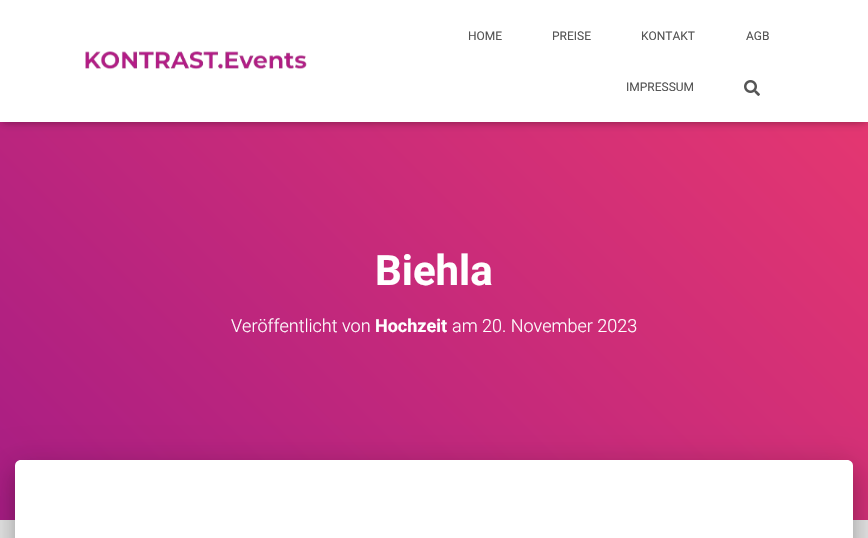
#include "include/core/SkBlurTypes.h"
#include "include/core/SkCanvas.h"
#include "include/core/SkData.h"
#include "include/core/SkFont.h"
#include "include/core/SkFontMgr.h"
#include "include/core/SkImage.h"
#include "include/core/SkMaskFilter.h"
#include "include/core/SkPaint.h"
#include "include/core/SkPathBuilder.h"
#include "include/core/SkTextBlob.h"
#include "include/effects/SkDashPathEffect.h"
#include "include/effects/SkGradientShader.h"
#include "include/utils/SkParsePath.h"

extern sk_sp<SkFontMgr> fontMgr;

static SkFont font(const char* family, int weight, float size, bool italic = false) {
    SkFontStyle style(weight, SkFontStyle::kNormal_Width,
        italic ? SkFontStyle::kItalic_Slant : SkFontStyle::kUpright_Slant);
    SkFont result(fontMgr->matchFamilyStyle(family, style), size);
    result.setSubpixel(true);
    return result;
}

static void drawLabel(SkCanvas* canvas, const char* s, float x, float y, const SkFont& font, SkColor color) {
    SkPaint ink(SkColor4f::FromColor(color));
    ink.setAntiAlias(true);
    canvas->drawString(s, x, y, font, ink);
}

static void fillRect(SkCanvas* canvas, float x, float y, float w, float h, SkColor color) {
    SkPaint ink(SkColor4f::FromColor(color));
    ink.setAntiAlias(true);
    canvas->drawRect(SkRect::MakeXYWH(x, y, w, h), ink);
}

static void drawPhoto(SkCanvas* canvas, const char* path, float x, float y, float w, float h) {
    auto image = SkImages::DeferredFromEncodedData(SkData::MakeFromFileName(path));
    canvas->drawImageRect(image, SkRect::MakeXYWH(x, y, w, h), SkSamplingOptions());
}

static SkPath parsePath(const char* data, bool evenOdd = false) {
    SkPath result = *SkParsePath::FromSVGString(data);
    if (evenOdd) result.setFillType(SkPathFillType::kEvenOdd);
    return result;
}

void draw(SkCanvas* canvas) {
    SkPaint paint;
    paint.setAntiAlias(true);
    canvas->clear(0xFFE5E5E5);
    {
        const SkColor colors[] = {0xFFA81D84, 0xFFEA396F};
        const float stops[] = {0, 1};
        const SkPoint ends[] = {{87, 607}, {781, -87}};
        paint.setShader(SkGradientShader::MakeLinear(ends, colors, stops, 2, SkTileMode::kClamp));
        paint.setAlpha(255);
    }
    canvas->drawRect(SkRect::MakeXYWH(0, 122, 868, 398), paint);
    paint.setShader(nullptr);
    paint.setColor(0x1A000000);
    paint.setMaskFilter(SkMaskFilter::MakeBlur(kNormal_SkBlurStyle, 2.5f));
    canvas->drawRect(SkRect::MakeXYWH(2, 6, 864, 118), paint);
    paint.setMaskFilter(nullptr);
    paint.setColor(0x1F000000);
    paint.setMaskFilter(SkMaskFilter::MakeBlur(kNormal_SkBlurStyle, 5));
    canvas->drawRect(SkRect::MakeXYWH(0, 1, 868, 122), paint);
    paint.setMaskFilter(nullptr);
    paint.setColor(0x6B000000);
    paint.setMaskFilter(SkMaskFilter::MakeBlur(kNormal_SkBlurStyle, 5));
    canvas->drawRect(SkRect::MakeXYWH(6, 7, 856, 110), paint);
    paint.setMaskFilter(nullptr);
    fillRect(canvas, 0, 0, 868, 122, 0xFFFFFFFF);
    drawPhoto(canvas, "assets/img1.png", 85, 51, 222, 19);
    SkFont font1 = font("Roboto", 400, 12);
    drawLabel(canvas, "HOME", 468, 40, font1, 0xFF555555);
    drawLabel(canvas, "PREISE", 552, 40, font1, 0xFF555555);
    drawLabel(canvas, "KONTAKT", 641, 40, font1, 0xFF555555);
    drawLabel(canvas, "AGB", 746, 40, font1, 0xFF555555);
    drawLabel(canvas, "IMPRESSUM", 626, 91, font1, 0xFF555555);
    drawPhoto(canvas, "assets/img2.png", 744, 80, 16, 16);
    SkFont font2 = font("Roboto", 700, 42);
    drawLabel(canvas, "Biehla", 375, 285, font2, 0xFFFFFFFF);
    SkFont font3 = font("Roboto", 300, 18);
    drawLabel(canvas, "Veröffentlicht von", 231, 332, font3, 0xFFFFFFFF);
    SkFont font4 = font("Roboto", 700, 18);
    drawLabel(canvas, "Hochzeit", 375, 332, font4, 0xFFFFFFFF);
    drawLabel(canvas, "am 20. November 2023", 452, 332, font3, 0xFFFFFFFF);
    paint.setColor(0x33000000);
    paint.setMaskFilter(SkMaskFilter::MakeBlur(kNormal_SkBlurStyle, 5));
    canvas->drawRoundRect(SkRect::MakeXYWH(20, 473, 828, 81), 1, 1, paint);
    paint.setMaskFilter(nullptr);
    paint.setColor(0x1F000000);
    paint.setMaskFilter(SkMaskFilter::MakeBlur(kNormal_SkBlurStyle, 15));
    canvas->drawRoundRect(SkRect::MakeXYWH(10, 461, 848, 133), 11, 11, paint);
    paint.setMaskFilter(nullptr);
    paint.setColor(0x24000000);
    paint.setMaskFilter(SkMaskFilter::MakeBlur(kNormal_SkBlurStyle, 12));
    canvas->drawRoundRect(SkRect::MakeXYWH(13, 474, 842, 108), 8, 8, paint);
    paint.setMaskFilter(nullptr);
    paint.setColor(0xFFFFFFFF);
    canvas->drawPath(parsePath("M21 460H847C850.5 460 853 462.5 853 466V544H15V466C15 462.5 17.5 460 21 460Z"), paint);
}
